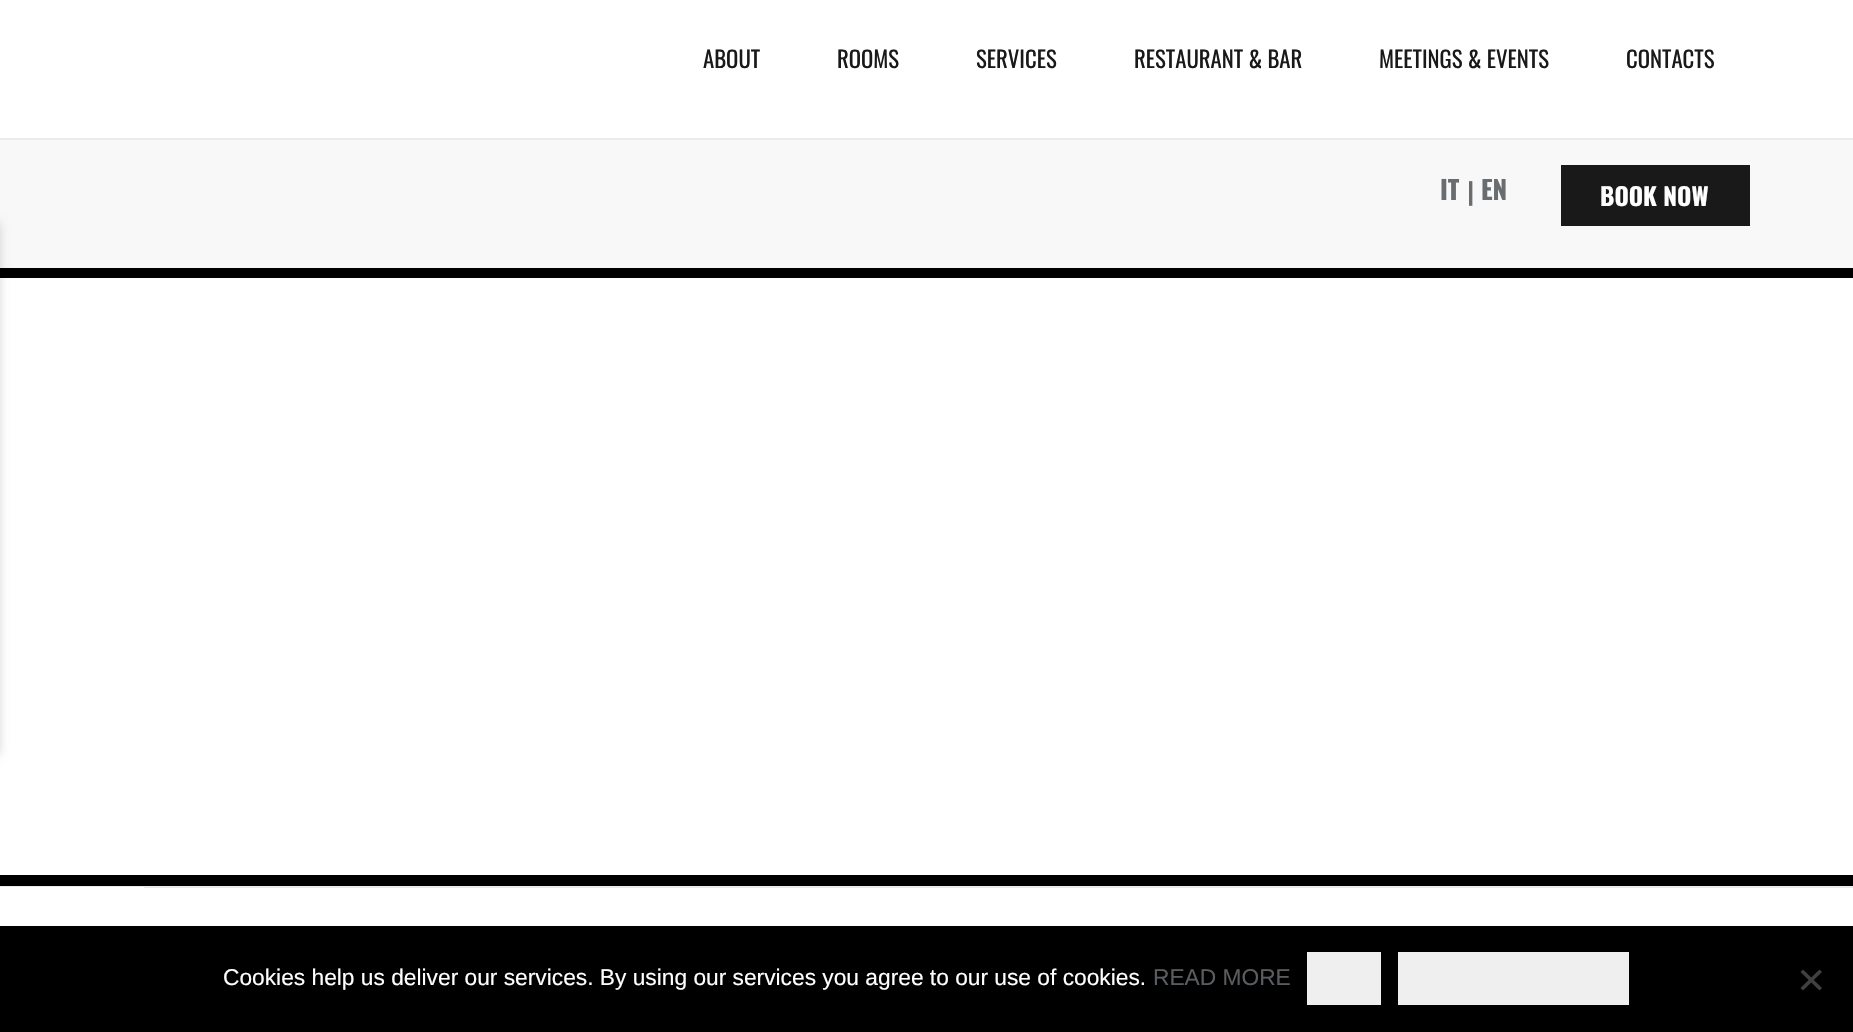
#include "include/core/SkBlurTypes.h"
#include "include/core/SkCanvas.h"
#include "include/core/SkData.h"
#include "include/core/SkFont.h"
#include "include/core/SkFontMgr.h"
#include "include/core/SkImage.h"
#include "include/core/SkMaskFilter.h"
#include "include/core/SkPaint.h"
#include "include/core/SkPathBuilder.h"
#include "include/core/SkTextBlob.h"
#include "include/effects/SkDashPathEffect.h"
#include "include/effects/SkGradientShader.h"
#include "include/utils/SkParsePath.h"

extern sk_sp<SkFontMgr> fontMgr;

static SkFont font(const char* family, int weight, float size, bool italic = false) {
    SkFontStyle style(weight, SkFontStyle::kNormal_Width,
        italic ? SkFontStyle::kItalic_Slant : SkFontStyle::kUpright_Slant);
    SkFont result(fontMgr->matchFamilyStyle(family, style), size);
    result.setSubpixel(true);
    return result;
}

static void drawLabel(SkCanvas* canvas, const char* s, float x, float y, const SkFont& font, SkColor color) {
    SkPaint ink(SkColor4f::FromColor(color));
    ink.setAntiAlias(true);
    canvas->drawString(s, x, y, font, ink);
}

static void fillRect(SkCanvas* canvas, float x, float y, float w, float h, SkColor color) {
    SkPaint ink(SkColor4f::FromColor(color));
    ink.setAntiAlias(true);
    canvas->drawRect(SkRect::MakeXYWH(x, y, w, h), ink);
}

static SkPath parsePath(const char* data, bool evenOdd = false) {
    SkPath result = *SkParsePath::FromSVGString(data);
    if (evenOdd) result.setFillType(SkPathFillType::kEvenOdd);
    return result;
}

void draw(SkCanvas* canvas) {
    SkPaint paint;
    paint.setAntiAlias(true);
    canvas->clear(0xFFFFFFFF);
    fillRect(canvas, 0, 138, 1853, 2, 0xFFEBEBEB);
    SkFont font1 = font("Oswald", 400, 22.75f);
    drawLabel(canvas, "ABOUT", 703, 68, font1, 0xFF191919);
    drawLabel(canvas, "ROOMS", 837, 68, font1, 0xFF191919);
    drawLabel(canvas, "SERVICES", 976, 68, font1, 0xFF191919);
    drawLabel(canvas, "RESTAURANT & BAR", 1134, 68, font1, 0xFF191919);
    drawLabel(canvas, "MEETINGS & EVENTS", 1379, 68, font1, 0xFF191919);
    drawLabel(canvas, "CONTACTS", 1626, 68, font1, 0xFF191919);
    fillRect(canvas, 0, 140, 1853, 128, 0xFFF8F8F8);
    SkFont font2 = font("Oswald", 700, 26);
    drawLabel(canvas, "IT", 1440, 200, font2, 0xFF6A6D6F);
    SkFont font3 = font("Liberation Sans", 700, 26);
    drawLabel(canvas, "|", 1467, 200, font3, 0xFF6A6D6F);
    drawLabel(canvas, "EN", 1481, 200, font2, 0xFF6A6D6F);
    fillRect(canvas, 1561, 165, 189, 61, 0xFF191919);
    SkFont font4 = font("Oswald", 700, 24.5f);
    drawLabel(canvas, "BOOK NOW", 1600, 206, font4, 0xFFFEFEFE);
    fillRect(canvas, 0, 268, 1853, 10, 0xFF000000);
    fillRect(canvas, 0, 875, 1853, 11, 0xFF000000);
    fillRect(canvas, 0, 886, 1853, 2, 0xFFEAEAEA);
    fillRect(canvas, 0, 887, 144, 1, 0xFFFFFFFF);
    paint.setColor(0x26000000);
    paint.setMaskFilter(SkMaskFilter::MakeBlur(kNormal_SkBlurStyle, 5));
    canvas->drawRoundRect(SkRect::MakeXYWH(-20, 222, 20, 534), 5, 5, paint);
    paint.setMaskFilter(nullptr);
    fillRect(canvas, 0, 926, 1853, 106, 0xFF000000);
    SkFont font5 = font("Liberation Sans", 400, 22.75f);
    drawLabel(canvas, "Cookies help us deliver our services. By using our services you agree to our use of cookies.", 223, 985, font5, 0xFFFEFEFE);
    drawLabel(canvas, "READ MORE", 1153, 985, font5, 0xFF5A5D60);
    fillRect(canvas, 1307, 952, 74, 53, 0xFFEFEFEF);
    fillRect(canvas, 1398, 952, 231, 53, 0xFFEFEFEF);
    paint.setColor(0xFF404040);
    canvas->drawPath(parsePath("M1819.5 969.5L1822 972L1803 990.5L1800.5 988Z"), paint);
    canvas->drawPath(parsePath("M1800.5 972L1803 969.5L1822 988L1819.5 990.5Z"), paint);
}
